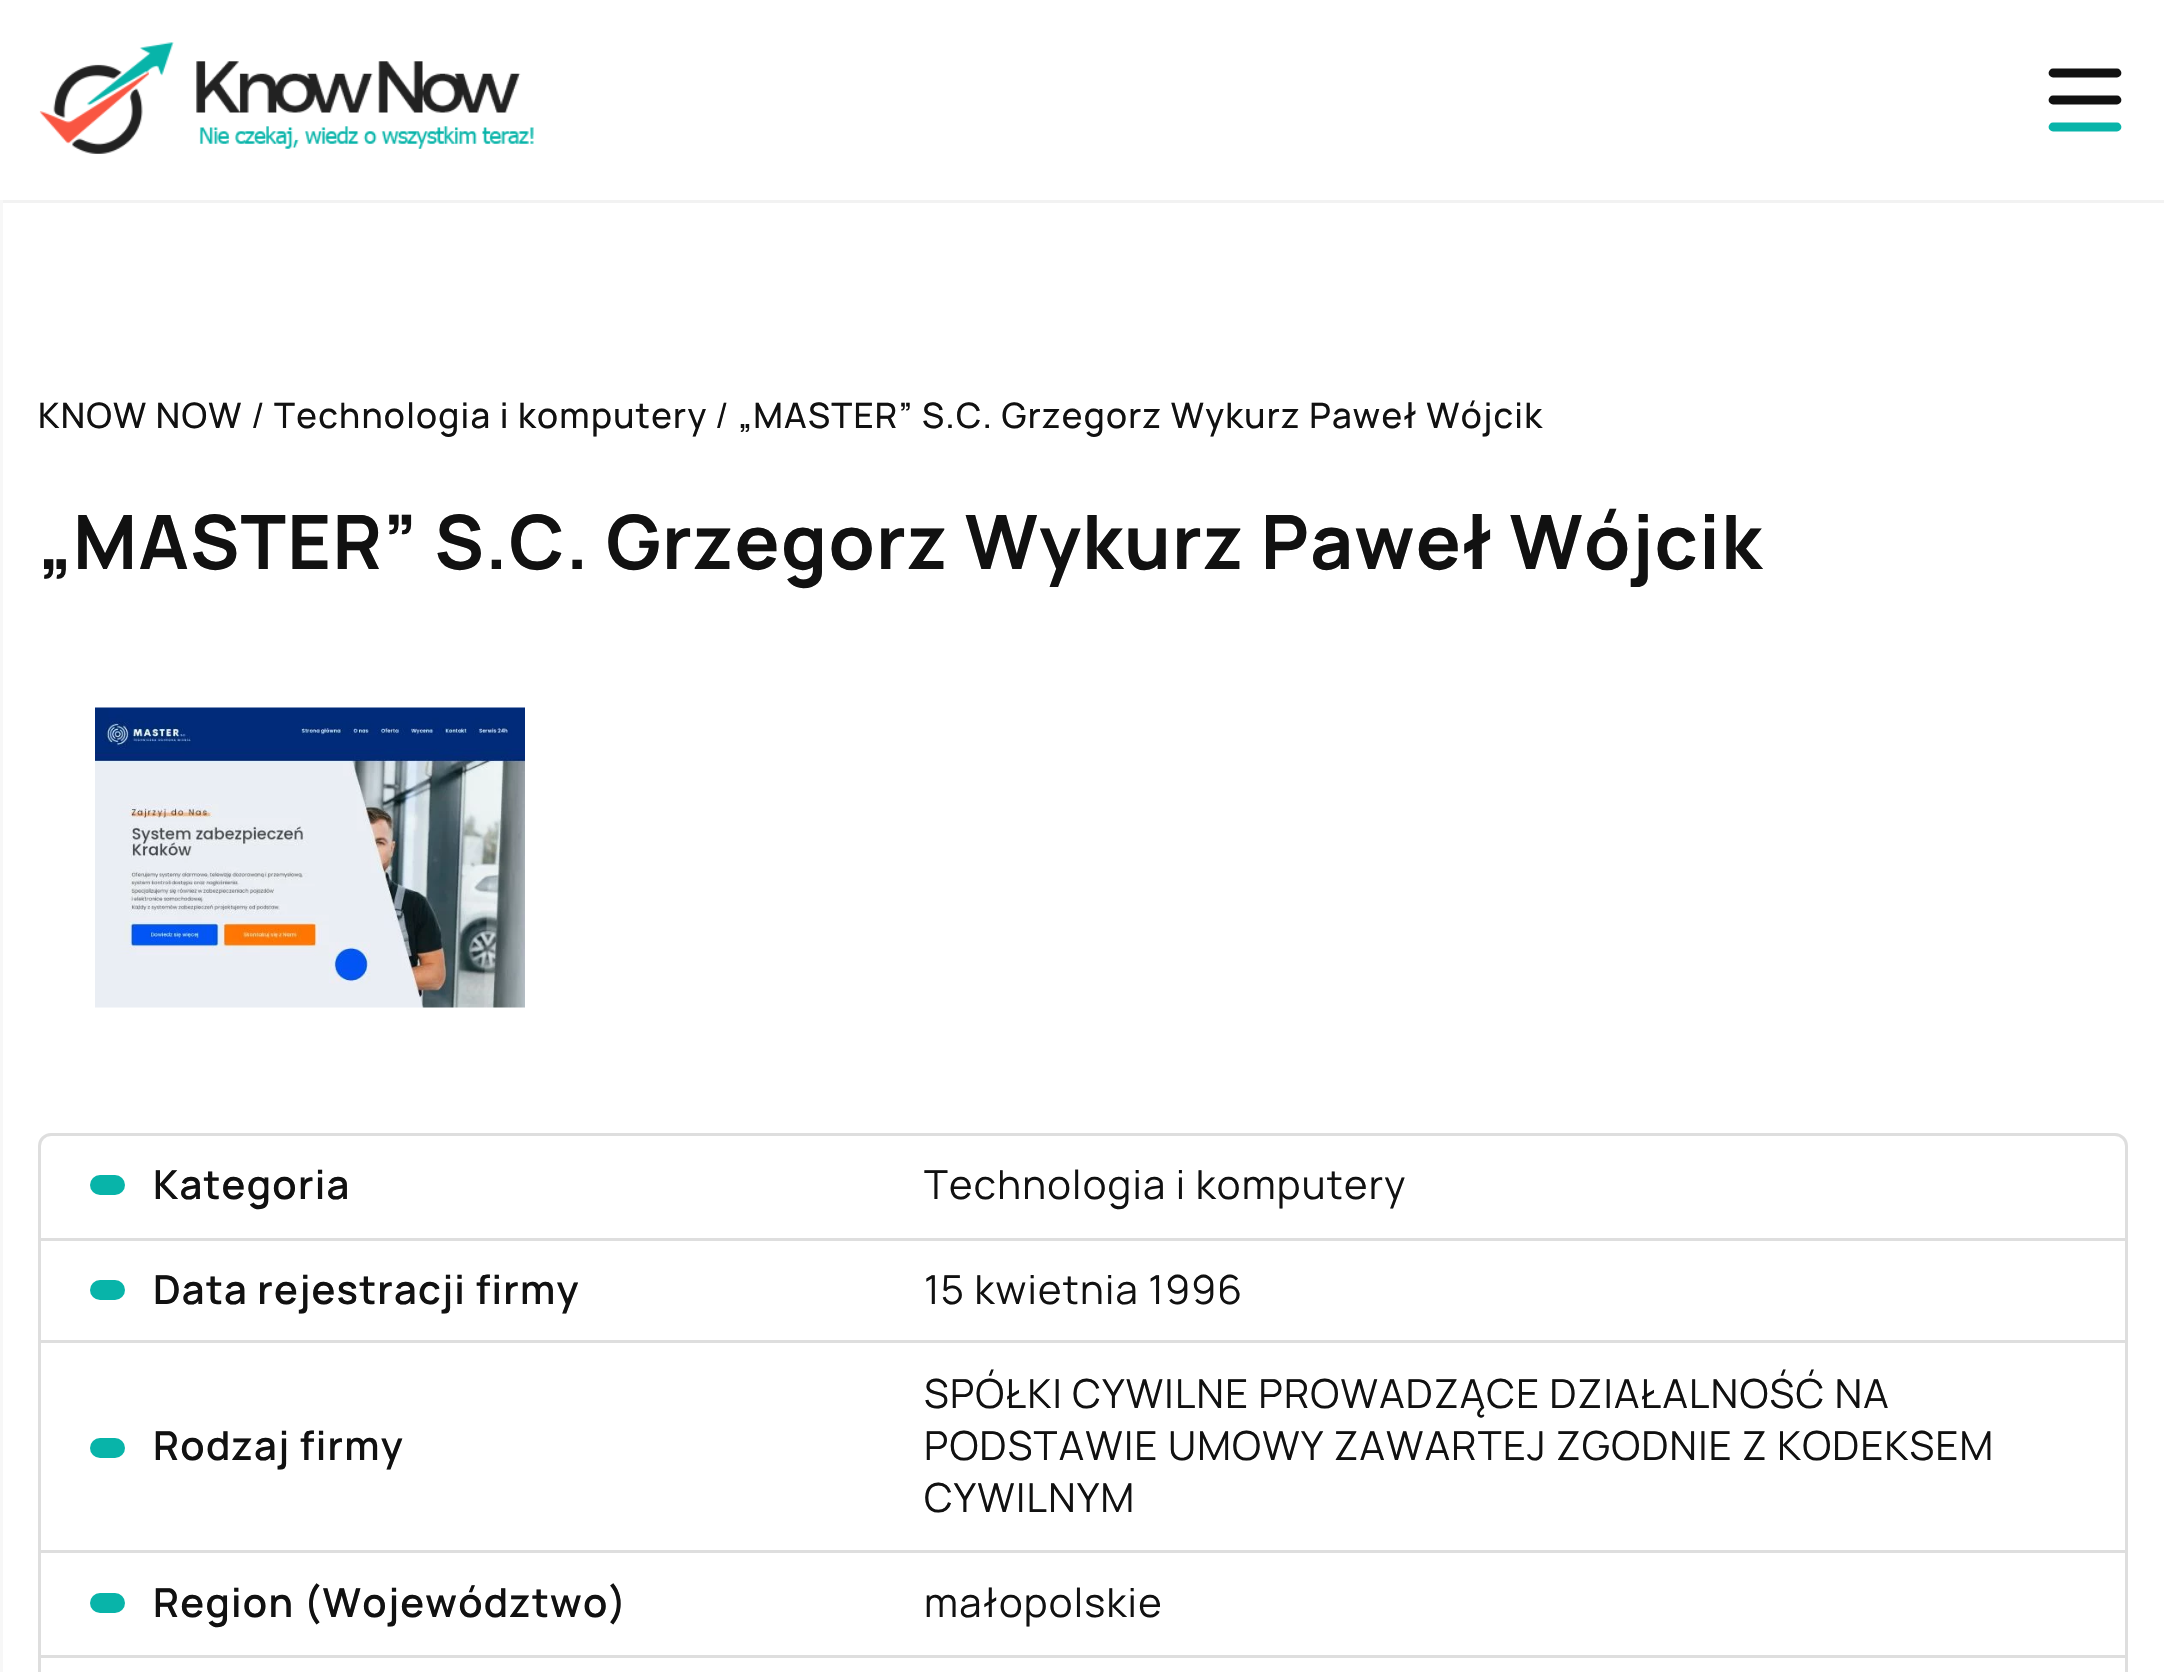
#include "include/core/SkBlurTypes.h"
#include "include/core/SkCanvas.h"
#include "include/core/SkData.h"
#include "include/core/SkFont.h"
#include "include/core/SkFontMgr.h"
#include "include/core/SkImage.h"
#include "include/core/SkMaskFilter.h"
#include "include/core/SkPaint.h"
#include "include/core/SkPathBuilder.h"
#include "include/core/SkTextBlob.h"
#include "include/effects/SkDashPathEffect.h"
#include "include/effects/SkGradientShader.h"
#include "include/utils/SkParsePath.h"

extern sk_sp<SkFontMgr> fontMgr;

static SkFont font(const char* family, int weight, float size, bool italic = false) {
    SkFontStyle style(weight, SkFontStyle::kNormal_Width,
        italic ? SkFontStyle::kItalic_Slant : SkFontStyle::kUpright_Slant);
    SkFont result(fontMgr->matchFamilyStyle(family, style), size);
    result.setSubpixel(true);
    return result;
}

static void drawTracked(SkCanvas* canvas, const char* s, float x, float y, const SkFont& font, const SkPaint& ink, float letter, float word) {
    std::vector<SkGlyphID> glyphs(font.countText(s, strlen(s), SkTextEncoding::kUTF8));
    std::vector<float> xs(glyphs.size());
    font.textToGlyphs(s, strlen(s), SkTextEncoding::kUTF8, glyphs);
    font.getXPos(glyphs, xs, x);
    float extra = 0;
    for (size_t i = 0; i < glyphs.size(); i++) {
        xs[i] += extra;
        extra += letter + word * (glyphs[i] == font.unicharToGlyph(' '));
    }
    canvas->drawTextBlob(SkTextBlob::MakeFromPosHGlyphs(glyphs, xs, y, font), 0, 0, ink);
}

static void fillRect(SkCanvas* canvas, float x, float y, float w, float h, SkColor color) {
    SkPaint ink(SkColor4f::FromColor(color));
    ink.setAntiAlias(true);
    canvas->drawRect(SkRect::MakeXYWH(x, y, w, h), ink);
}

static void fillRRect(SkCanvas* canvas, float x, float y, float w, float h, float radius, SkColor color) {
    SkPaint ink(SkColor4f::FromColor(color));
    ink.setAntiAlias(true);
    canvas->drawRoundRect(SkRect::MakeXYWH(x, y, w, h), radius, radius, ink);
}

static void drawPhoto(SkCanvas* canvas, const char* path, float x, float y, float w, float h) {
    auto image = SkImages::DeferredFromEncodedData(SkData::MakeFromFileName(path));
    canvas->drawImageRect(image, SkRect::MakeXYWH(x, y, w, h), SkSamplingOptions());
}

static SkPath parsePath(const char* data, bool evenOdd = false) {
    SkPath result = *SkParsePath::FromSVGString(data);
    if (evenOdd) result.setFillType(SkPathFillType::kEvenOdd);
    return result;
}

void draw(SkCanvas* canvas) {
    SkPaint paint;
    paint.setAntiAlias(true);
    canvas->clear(0xFFFFFFFF);
    fillRect(canvas, 0, 200, 2164, 3, 0xFFF2F2F2);
    drawPhoto(canvas, "assets/img1.png", 39, 42, 495, 112);
    paint.setStroke(true);
    paint.setStrokeWidth(8.8f);
    paint.setStrokeCap(SkPaint::kRound_Cap);
    paint.setColor(0xFF111111);
    canvas->drawPath(parsePath("M2053 73H2117"), paint);
    canvas->drawPath(parsePath("M2053 100H2117"), paint);
    paint.setColor(0xFF08B4A9);
    canvas->drawPath(parsePath("M2117 127H2053"), paint);
    fillRect(canvas, 0, 200, 3, 1472, 0xFFF7F7F7);
    SkFont font1 = font("Manrope", 500, 35);
    paint.setStroke(false);
    paint.setColor(0xFF111111);
    drawTracked(canvas, "KNOW NOW", 38, 428, font1, paint, 1.25f, 0);
    SkFont font2 = font("Manrope", 400, 35);
    drawTracked(canvas, "/", 251, 428, font2, paint, 1.25f, 0);
    drawTracked(canvas, "Technologia i komputery", 274, 428, font1, paint, 1.25f, 0);
    drawTracked(canvas, "/", 715, 428, font2, paint, 1.25f, 0);
    drawTracked(canvas, "„MASTER” S.C. Grzegorz Wykurz Paweł Wójcik", 738, 428, font1, paint, 1.25f, 0);
    SkFont font3 = font("Manrope", 700, 75);
    drawTracked(canvas, "„MASTER” S.C. Grzegorz Wykurz Paweł Wójcik", 38, 569, font3, paint, 1.25f, 0);
    drawPhoto(canvas, "assets/img2.png", 95, 707, 430, 301);
    paint.setStroke(true);
    paint.setStrokeWidth(3);
    paint.setStrokeCap(SkPaint::kButt_Cap);
    paint.setColor(0xFFDEDEDE);
    canvas->drawRoundRect(SkRect::MakeXYWH(39.5f, 1134.5f, 2087, 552), 11.5f, 11.5f, paint);
    fillRect(canvas, 40, 1238, 2085, 3, 0xFFDEDEDE);
    fillRRect(canvas, 90, 1175, 35, 20, 10, 0xFF08B4A9);
    SkFont font4 = font("Manrope", 600, 40);
    paint.setStroke(false);
    paint.setColor(0xFF111111);
    drawTracked(canvas, "Kategoria", 153, 1199, font4, paint, 1.25f, 0);
    SkFont font5 = font("Manrope", 400, 40);
    drawTracked(canvas, "Technologia i komputery", 924, 1199, font5, paint, 1.25f, 0);
    fillRect(canvas, 40, 1340, 2085, 3, 0xFFDEDEDE);
    fillRRect(canvas, 90, 1280, 35, 20, 10, 0xFF08B4A9);
    drawTracked(canvas, "Data rejestracji firmy", 153, 1304, font4, paint, 1.25f, 0);
    drawTracked(canvas, "15 kwietnia 1996", 924, 1304, font5, paint, 1.25f, 0);
    fillRect(canvas, 40, 1550, 2085, 3, 0xFFDEDEDE);
    fillRRect(canvas, 90, 1438, 35, 20, 10, 0xFF08B4A9);
    drawTracked(canvas, "Rodzaj firmy", 153, 1460, font4, paint, 1.25f, 0);
    drawTracked(canvas, "SPÓŁKI CYWILNE PROWADZĄCE DZIAŁALNOŚĆ NA", 924, 1408, font5, paint, 1.25f, 0);
    drawTracked(canvas, "PODSTAWIE UMOWY ZAWARTEJ ZGODNIE Z KODEKSEM", 924, 1460, font5, paint, 1.25f, 0);
    drawTracked(canvas, "CYWILNYM", 924, 1512, font5, paint, 1.25f, 0);
    fillRect(canvas, 40, 1655, 2085, 3, 0xFFDEDEDE);
    fillRRect(canvas, 90, 1593, 35, 20, 10, 0xFF08B4A9);
    drawTracked(canvas, "Region (Województwo)", 153, 1617, font4, paint, 1.25f, 0);
    drawTracked(canvas, "małopolskie", 924, 1617, font5, paint, 1.25f, 0);
}
